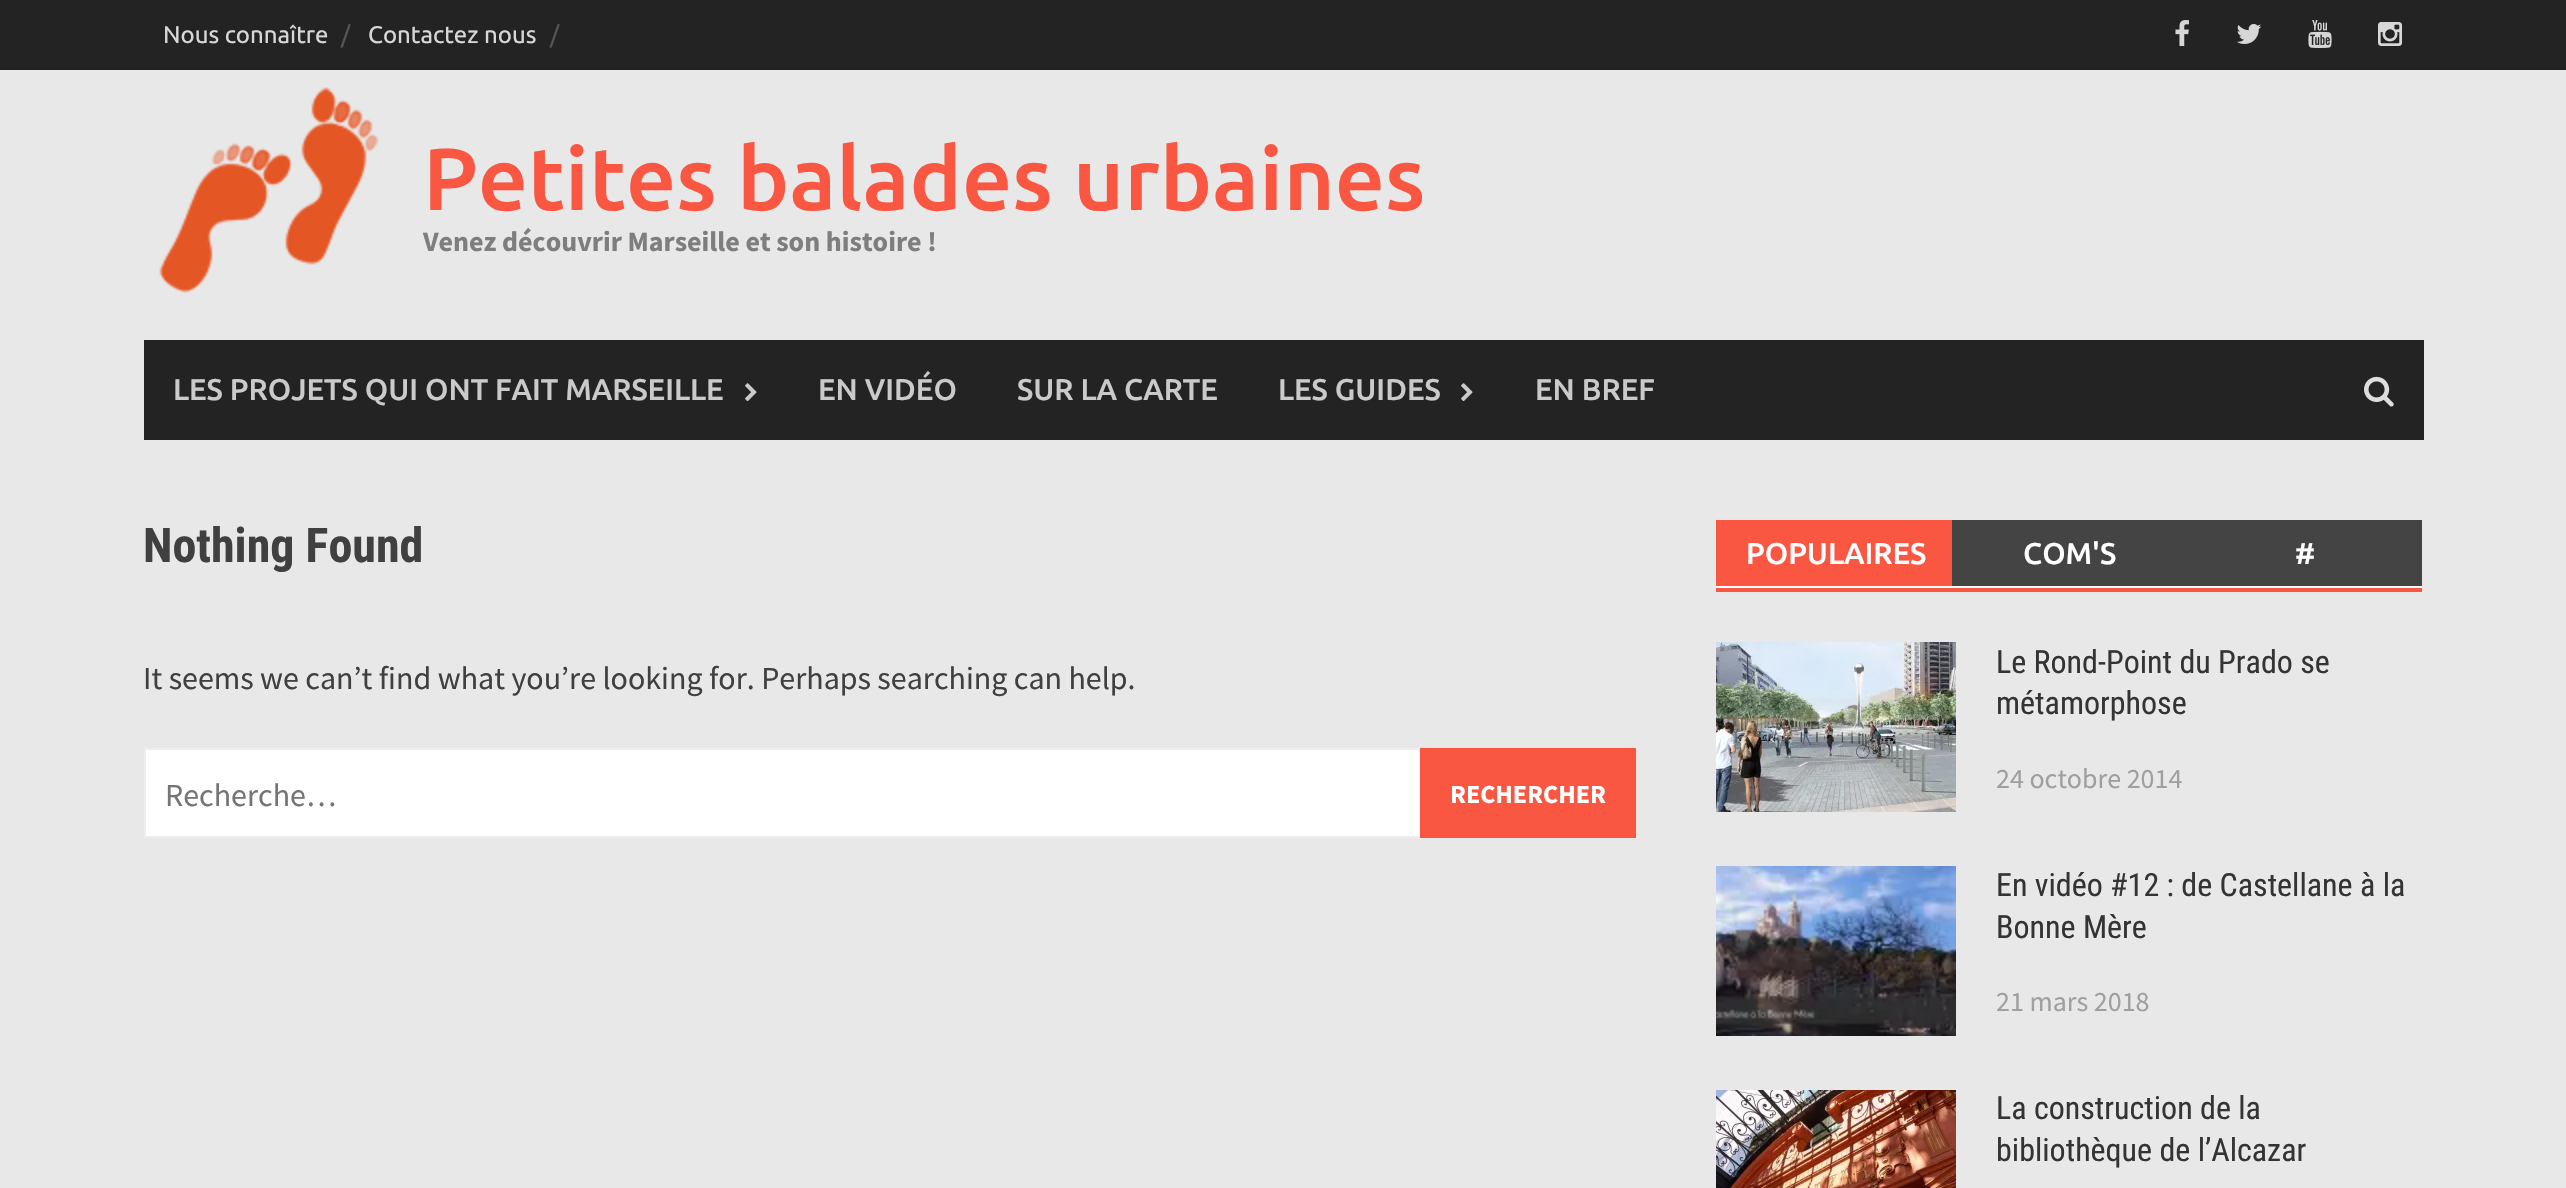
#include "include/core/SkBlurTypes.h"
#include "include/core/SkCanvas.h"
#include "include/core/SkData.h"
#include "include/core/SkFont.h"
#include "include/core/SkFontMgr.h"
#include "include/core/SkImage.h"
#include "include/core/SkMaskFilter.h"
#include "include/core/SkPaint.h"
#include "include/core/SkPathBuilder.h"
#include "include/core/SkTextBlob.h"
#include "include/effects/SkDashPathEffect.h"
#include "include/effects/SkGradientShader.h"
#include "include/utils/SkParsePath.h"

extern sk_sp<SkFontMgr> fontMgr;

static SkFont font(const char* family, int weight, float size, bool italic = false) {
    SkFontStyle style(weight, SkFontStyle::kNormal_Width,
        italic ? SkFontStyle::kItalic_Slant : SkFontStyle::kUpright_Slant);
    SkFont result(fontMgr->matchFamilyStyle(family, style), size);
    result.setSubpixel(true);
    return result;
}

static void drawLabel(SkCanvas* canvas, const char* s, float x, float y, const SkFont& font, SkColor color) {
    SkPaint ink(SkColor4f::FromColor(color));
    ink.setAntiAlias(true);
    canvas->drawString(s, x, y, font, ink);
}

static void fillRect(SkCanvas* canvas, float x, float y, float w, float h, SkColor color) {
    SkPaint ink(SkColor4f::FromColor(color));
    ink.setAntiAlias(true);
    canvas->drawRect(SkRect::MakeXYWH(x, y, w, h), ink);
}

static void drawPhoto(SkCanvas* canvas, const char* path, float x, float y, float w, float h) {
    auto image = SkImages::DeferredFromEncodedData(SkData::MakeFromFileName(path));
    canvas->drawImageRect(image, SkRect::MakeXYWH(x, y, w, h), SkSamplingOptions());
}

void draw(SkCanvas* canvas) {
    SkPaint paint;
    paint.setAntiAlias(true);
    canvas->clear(0xFFE8E8E8);
    fillRect(canvas, 0, 0, 2566, 70, 0xFF232323);
    SkFont font1 = font("Ubuntu", 400, 24);
    drawLabel(canvas, "Nous connaître", 163, 43, font1, 0xFFD7D7D7);
    drawLabel(canvas, "/", 341, 43, font1, 0xFF555555);
    drawLabel(canvas, "Contactez nous", 368, 43, font1, 0xFFD7D7D7);
    drawLabel(canvas, "/", 550, 43, font1, 0xFF555555);
    drawPhoto(canvas, "assets/img1.png", 2175, 20, 14, 26);
    drawPhoto(canvas, "assets/img2.png", 2236, 24, 26, 20);
    drawPhoto(canvas, "assets/img3.png", 2308, 20, 24, 28);
    drawPhoto(canvas, "assets/img4.png", 2378, 22, 24, 24);
    drawPhoto(canvas, "assets/img5.png", 159, 87, 220, 206);
    SkFont font2 = font("Ubuntu", 500, 88);
    drawLabel(canvas, "Petites balades urbaines", 423, 210, font2, 0xFFFA5742);
    SkFont font3 = font("Source Sans Pro", 700, 28);
    drawLabel(canvas, "Venez découvrir Marseille et son histoire !", 423, 251, font3, 0xFF7E7E7E);
    fillRect(canvas, 144, 340, 2280, 100, 0xFF232323);
    SkFont font4 = font("Ubuntu", 500, 30);
    drawLabel(canvas, "LES PROJETS QUI ONT FAIT MARSEILLE", 173, 400, font4, 0xFFCACACA);
    drawPhoto(canvas, "assets/img6.png", 745, 383, 12, 19);
    drawLabel(canvas, "EN VIDÉO", 818, 400, font4, 0xFFCACACA);
    drawLabel(canvas, "SUR LA CARTE", 1017, 400, font4, 0xFFCACACA);
    drawLabel(canvas, "LES GUIDES", 1278, 400, font4, 0xFFCACACA);
    drawPhoto(canvas, "assets/img6.png", 1461, 383, 12, 19);
    drawLabel(canvas, "EN BREF", 1535, 400, font4, 0xFFCACACA);
    drawPhoto(canvas, "assets/img7.png", 2364, 376, 30, 31);
    SkFont font5 = font("Roboto Condensed", 700, 48);
    drawLabel(canvas, "Nothing Found", 143, 562, font5, 0xFF404040);
    SkFont font6 = font("Source Sans Pro", 400, 32);
    drawLabel(canvas, "It seems we can’t find what you’re looking for. Perhaps searching can help.", 143, 689, font6, 0xFF404040);
    fillRect(canvas, 146, 750, 1274, 86, 0xFFFFFFFF);
    paint.setStroke(true);
    paint.setStrokeWidth(2);
    paint.setColor(0xFFEEEEEE);
    canvas->drawRect(SkRect::MakeXYWH(145, 749, 1490, 88), paint);
    drawLabel(canvas, "Recherche…", 165, 806, font6, 0xFF757575);
    fillRect(canvas, 1420, 748, 216, 90, 0xFFFA5742);
    SkFont font7 = font("Source Sans Pro", 700, 26);
    drawLabel(canvas, "RECHERCHER", 1450, 803, font7, 0xFFFFFFFF);
    fillRect(canvas, 1952, 520, 470, 66, 0xFF444444);
    fillRect(canvas, 1716, 588, 706, 4, 0xFFFA5742);
    fillRect(canvas, 1716, 586, 706, 2, 0xFFFFFFFF);
    fillRect(canvas, 1716, 520, 236, 66, 0xFFFA5742);
    drawLabel(canvas, "POPULAIRES", 1746, 564, font4, 0xFFFFFFFF);
    drawLabel(canvas, "COM'S", 2023, 564, font4, 0xFFFFFFFF);
    drawLabel(canvas, "#", 2295, 564, font4, 0xFFFFFFFF);
    drawPhoto(canvas, "assets/img8.png", 1716, 642, 240, 170);
    SkFont font8 = font("Roboto Condensed", 400, 32);
    drawLabel(canvas, "Le Rond-Point du Prado se", 1996, 673, font8, 0xFF353434);
    drawLabel(canvas, "métamorphose", 1996, 714, font8, 0xFF353434);
    SkFont font9 = font("Source Sans Pro", 400, 28);
    drawLabel(canvas, "24 octobre 2014", 1996, 788, font9, 0xFF9F9F9F);
    drawPhoto(canvas, "assets/img9.png", 1716, 866, 240, 170);
    drawLabel(canvas, "En vidéo #12 : de Castellane à la", 1996, 896, font8, 0xFF353434);
    drawLabel(canvas, "Bonne Mère", 1996, 938, font8, 0xFF353434);
    drawLabel(canvas, "21 mars 2018", 1996, 1011, font9, 0xFF9F9F9F);
    drawPhoto(canvas, "assets/img10.png", 1716, 1090, 240, 98);
    drawLabel(canvas, "La construction de la", 1996, 1119, font8, 0xFF353434);
    drawLabel(canvas, "bibliothèque de l’Alcazar", 1996, 1161, font8, 0xFF353434);
}
